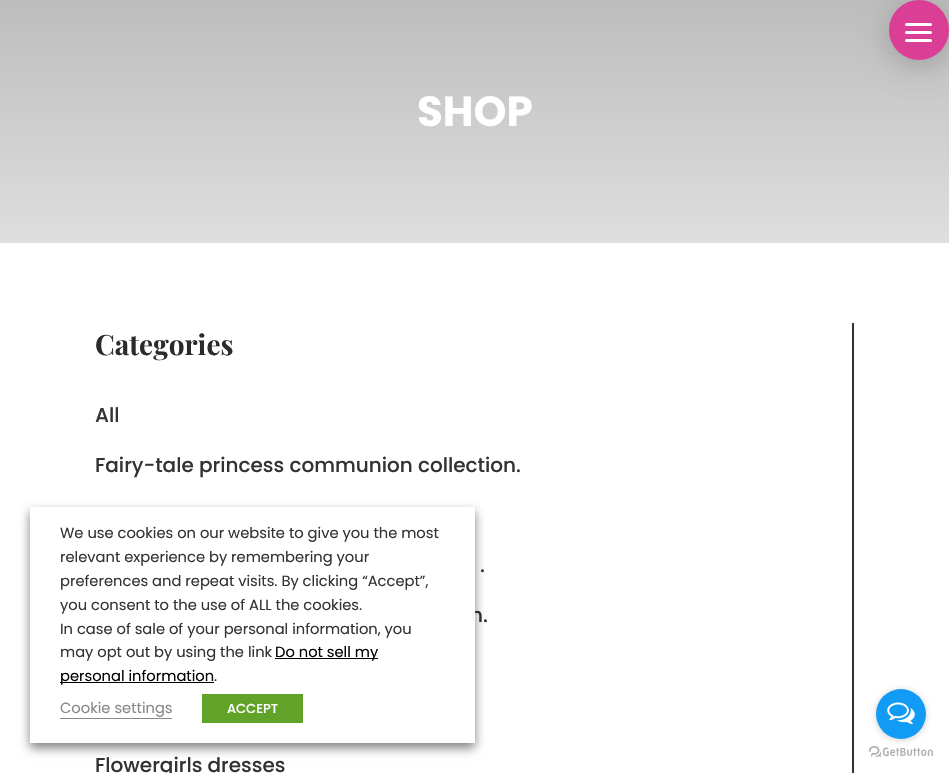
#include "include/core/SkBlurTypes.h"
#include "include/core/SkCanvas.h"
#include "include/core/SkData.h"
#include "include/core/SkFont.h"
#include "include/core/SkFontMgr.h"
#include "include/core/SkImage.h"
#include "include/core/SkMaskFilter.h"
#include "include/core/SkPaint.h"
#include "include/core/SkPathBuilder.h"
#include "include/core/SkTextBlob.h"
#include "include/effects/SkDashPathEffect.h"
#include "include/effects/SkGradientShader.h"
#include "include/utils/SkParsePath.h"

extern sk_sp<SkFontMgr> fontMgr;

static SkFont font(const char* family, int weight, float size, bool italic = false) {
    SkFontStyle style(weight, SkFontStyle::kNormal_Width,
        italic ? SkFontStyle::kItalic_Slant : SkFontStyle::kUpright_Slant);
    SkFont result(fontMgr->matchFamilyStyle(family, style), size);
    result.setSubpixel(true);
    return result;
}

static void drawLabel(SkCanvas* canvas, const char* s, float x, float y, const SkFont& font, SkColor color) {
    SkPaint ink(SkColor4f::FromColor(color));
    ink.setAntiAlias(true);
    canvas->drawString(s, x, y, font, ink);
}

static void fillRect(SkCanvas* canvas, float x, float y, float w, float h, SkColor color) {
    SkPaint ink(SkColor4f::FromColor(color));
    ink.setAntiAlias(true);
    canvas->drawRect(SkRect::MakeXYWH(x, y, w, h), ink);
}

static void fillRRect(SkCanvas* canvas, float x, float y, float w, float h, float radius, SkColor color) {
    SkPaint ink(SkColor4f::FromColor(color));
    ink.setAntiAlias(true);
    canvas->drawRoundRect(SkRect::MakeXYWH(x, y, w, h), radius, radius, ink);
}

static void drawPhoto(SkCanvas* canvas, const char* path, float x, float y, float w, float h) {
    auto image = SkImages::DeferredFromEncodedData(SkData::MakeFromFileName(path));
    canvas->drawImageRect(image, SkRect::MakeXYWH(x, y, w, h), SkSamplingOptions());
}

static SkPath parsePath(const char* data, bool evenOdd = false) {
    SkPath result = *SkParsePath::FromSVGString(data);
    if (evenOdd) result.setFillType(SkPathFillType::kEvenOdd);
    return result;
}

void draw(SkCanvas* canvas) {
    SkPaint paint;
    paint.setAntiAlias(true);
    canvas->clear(0xFFFFFFFF);
    {
        const SkColor colors[] = {0xFFBDBDBD, 0xFFDEDEDE};
        const float stops[] = {0, 1};
        const SkPoint ends[] = {{475, 0}, {475, 243}};
        paint.setShader(SkGradientShader::MakeLinear(ends, colors, stops, 2, SkTileMode::kClamp));
        paint.setAlpha(255);
    }
    canvas->drawRect(SkRect::MakeXYWH(0, 0, 949, 243), paint);
    paint.setShader(nullptr);
    paint.setColor(0x33000000);
    paint.setMaskFilter(SkMaskFilter::MakeBlur(kNormal_SkBlurStyle, 15));
    canvas->drawRoundRect(SkRect::MakeXYWH(889, 6, 60, 60), 30, 30, paint);
    paint.setMaskFilter(nullptr);
    paint.setColor(0xFFDB3F95);
    canvas->drawCircle(919, 30, 30, paint);
    fillRRect(canvas, 905, 31, 27, 3, 1.5f, 0xFFFFFFFF);
    fillRRect(canvas, 905, 23, 27, 3, 1.5f, 0xFFFFFFFF);
    fillRRect(canvas, 905, 39, 27, 3, 1.5f, 0xFFFFFFFF);
    SkFont font1 = font("Poppins", 700, 42);
    drawLabel(canvas, "SHOP", 417, 126, font1, 0xFFFFFFFF);
    fillRect(canvas, 852, 323, 2, 450, 0xFF333333);
    SkFont font2 = font("Playfair Display", 700, 28);
    drawLabel(canvas, "Categories", 95, 355, font2, 0xFF2B2B2B);
    SkFont font3 = font("Poppins", 500, 20);
    drawLabel(canvas, "All", 95, 422, font3, 0xFF333333);
    drawLabel(canvas, "Fairy-tale princess communion collection.", 95, 472, font3, 0xFF333333);
    drawLabel(canvas, ".", 480, 572, font3, 0xFF333333);
    drawLabel(canvas, "n.", 470, 622, font3, 0xFF333333);
    drawLabel(canvas, "Flowergirls dresses", 95, 772, font3, 0xFF333333);
    canvas->save();
    canvas->clipPath(parsePath("M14 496H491V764H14ZM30 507H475V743H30Z", true), true);
    paint.setColor(0x80000000);
    paint.setMaskFilter(SkMaskFilter::MakeBlur(kNormal_SkBlurStyle, 5));
    canvas->drawRect(SkRect::MakeXYWH(30, 512, 445, 236), paint);
    paint.setMaskFilter(nullptr);
    canvas->restore();
    fillRect(canvas, 471, 611, 4, 11, 0xF7FFFFFF);
    SkFont font4 = font("Poppins", 400, 14.7f);
    drawLabel(canvas, "We use cookies on our website to give you the most", 60, 538, font4, 0xFF333333);
    drawLabel(canvas, "relevant experience by remembering your", 60, 562, font4, 0xFF333333);
    drawLabel(canvas, "preferences and repeat visits. By clicking “Accept”,", 60, 586, font4, 0xFF333333);
    drawLabel(canvas, "you consent to the use of ALL the cookies.", 60, 610, font4, 0xFF333333);
    drawLabel(canvas, "In case of sale of your personal information, you", 60, 634, font4, 0xFF333333);
    drawLabel(canvas, "may opt out by using the link", 60, 657, font4, 0xFF333333);
    fillRect(canvas, 275, 658, 103, 1, 0xFF000000);
    drawLabel(canvas, "Do not sell my", 275, 657, font4, 0xFF000000);
    fillRect(canvas, 60, 682, 154, 1, 0xFF000000);
    drawLabel(canvas, "personal information", 60, 681, font4, 0xFF000000);
    drawLabel(canvas, ".", 214, 681, font4, 0xFF333333);
    drawLabel(canvas, "Cookie settings", 60, 713, font4, 0xFF898888);
    fillRect(canvas, 60, 718, 112, 1, 0xFF898888);
    fillRect(canvas, 202, 694, 101, 29, 0xFF61A229);
    SkFont font5 = font("Poppins", 500, 13);
    drawLabel(canvas, "ACCEPT", 227, 713, font5, 0xFFFFFFFF);
    drawPhoto(canvas, "assets/img2.png", 869, 746, 64, 11);
    paint.setColor(0x66888888);
    paint.setMaskFilter(SkMaskFilter::MakeBlur(kNormal_SkBlurStyle, 3.5f));
    canvas->drawRoundRect(SkRect::MakeXYWH(876, 690, 50, 50), 25, 25, paint);
    paint.setMaskFilter(nullptr);
    paint.setColor(0xFF129BF4);
    canvas->drawCircle(901, 714, 25, paint);
    drawPhoto(canvas, "assets/img1.png", 887, 702, 28, 23);
}
